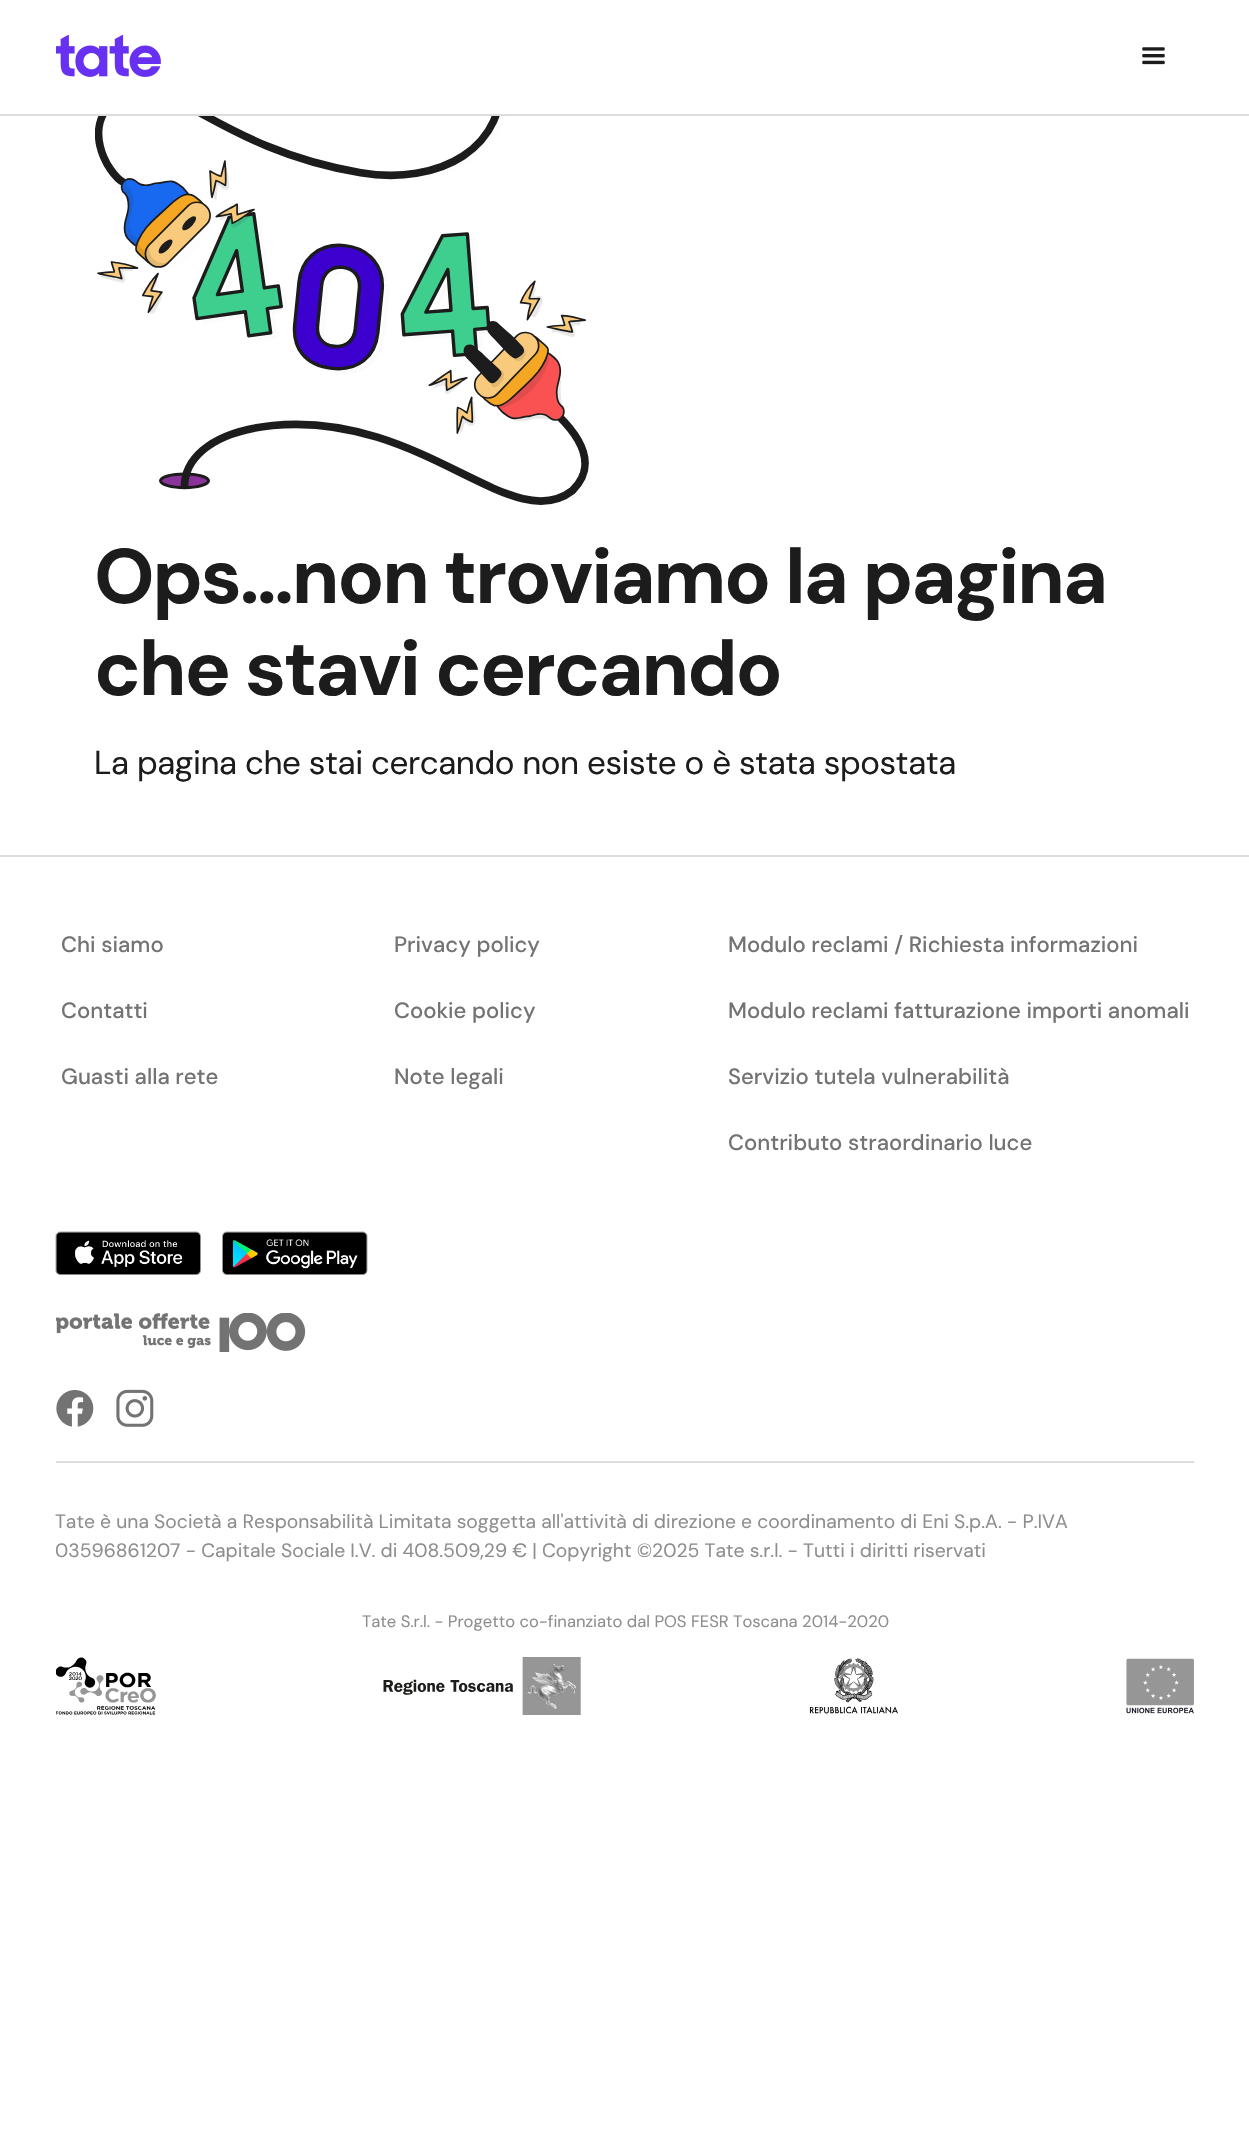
#include "include/core/SkBlurTypes.h"
#include "include/core/SkCanvas.h"
#include "include/core/SkData.h"
#include "include/core/SkFont.h"
#include "include/core/SkFontMgr.h"
#include "include/core/SkImage.h"
#include "include/core/SkMaskFilter.h"
#include "include/core/SkPaint.h"
#include "include/core/SkPathBuilder.h"
#include "include/core/SkTextBlob.h"
#include "include/effects/SkDashPathEffect.h"
#include "include/effects/SkGradientShader.h"
#include "include/utils/SkParsePath.h"

extern sk_sp<SkFontMgr> fontMgr;

static SkFont font(const char* family, int weight, float size, bool italic = false) {
    SkFontStyle style(weight, SkFontStyle::kNormal_Width,
        italic ? SkFontStyle::kItalic_Slant : SkFontStyle::kUpright_Slant);
    SkFont result(fontMgr->matchFamilyStyle(family, style), size);
    result.setSubpixel(true);
    return result;
}

static void drawLabel(SkCanvas* canvas, const char* s, float x, float y, const SkFont& font, SkColor color) {
    SkPaint ink(SkColor4f::FromColor(color));
    ink.setAntiAlias(true);
    canvas->drawString(s, x, y, font, ink);
}

static void drawTracked(SkCanvas* canvas, const char* s, float x, float y, const SkFont& font, const SkPaint& ink, float letter, float word) {
    std::vector<SkGlyphID> glyphs(font.countText(s, strlen(s), SkTextEncoding::kUTF8));
    std::vector<float> xs(glyphs.size());
    font.textToGlyphs(s, strlen(s), SkTextEncoding::kUTF8, glyphs);
    font.getXPos(glyphs, xs, x);
    float extra = 0;
    for (size_t i = 0; i < glyphs.size(); i++) {
        xs[i] += extra;
        extra += letter + word * (glyphs[i] == font.unicharToGlyph(' '));
    }
    canvas->drawTextBlob(SkTextBlob::MakeFromPosHGlyphs(glyphs, xs, y, font), 0, 0, ink);
}

static void fillRect(SkCanvas* canvas, float x, float y, float w, float h, SkColor color) {
    SkPaint ink(SkColor4f::FromColor(color));
    ink.setAntiAlias(true);
    canvas->drawRect(SkRect::MakeXYWH(x, y, w, h), ink);
}

static void drawPhoto(SkCanvas* canvas, const char* path, float x, float y, float w, float h) {
    auto image = SkImages::DeferredFromEncodedData(SkData::MakeFromFileName(path));
    canvas->drawImageRect(image, SkRect::MakeXYWH(x, y, w, h), SkSamplingOptions());
}

void draw(SkCanvas* canvas) {
    SkPaint paint;
    paint.setAntiAlias(true);
    canvas->clear(0xFFFFFFFF);
    fillRect(canvas, 0, 114, 1249, 2, 0xFFDDDDDD);
    drawPhoto(canvas, "assets/img1.png", 56, 35, 105, 42);
    drawPhoto(canvas, "assets/img2.png", 1142, 47, 23, 18);
    drawPhoto(canvas, "assets/img3.png", 95, 116, 494, 389);
    SkFont font1 = font("DM Sans", 700, 77.4f);
    paint.setColor(0xFF1C1C1C);
    drawTracked(canvas, "Ops...non troviamo la pagina", 94, 603, font1, paint, -2.2f, 0);
    drawTracked(canvas, "che stavi cercando", 94, 695, font1, paint, -2.2f, 0);
    SkFont font2 = font("DM Sans", 400, 33.15f);
    drawTracked(canvas, "La pagina che stai cercando non esiste o è stata spostata", 94, 774, font2, paint, -0.45f, 0);
    fillRect(canvas, 0, 855, 1249, 2, 0xFFDDDDDD);
    SkFont font3 = font("DM Sans", 500, 22.1f);
    drawLabel(canvas, "Chi siamo", 61, 952, font3, 0xFF737373);
    drawLabel(canvas, "Privacy policy", 394, 952, font3, 0xFF737373);
    drawLabel(canvas, "Modulo reclami / Richiesta informazioni", 728, 952, font3, 0xFF737373);
    drawLabel(canvas, "Contatti", 61, 1018, font3, 0xFF737373);
    drawLabel(canvas, "Cookie policy", 394, 1018, font3, 0xFF737373);
    drawLabel(canvas, "Modulo reclami fatturazione importi anomali", 728, 1018, font3, 0xFF737373);
    drawLabel(canvas, "Guasti alla rete", 61, 1084, font3, 0xFF737373);
    drawLabel(canvas, "Note legali", 394, 1084, font3, 0xFF737373);
    drawLabel(canvas, "Servizio tutela vulnerabilità", 728, 1084, font3, 0xFF737373);
    drawLabel(canvas, "Contributo straordinario luce", 728, 1150, font3, 0xFF737373);
    drawPhoto(canvas, "assets/img4.png", 55, 1231, 146, 44);
    drawPhoto(canvas, "assets/img5.png", 222, 1231, 146, 44);
    drawPhoto(canvas, "assets/img6.png", 56, 1313, 250, 39);
    drawPhoto(canvas, "assets/img7.png", 56, 1390, 38, 37);
    drawPhoto(canvas, "assets/img8.png", 116, 1389, 38, 38);
    fillRect(canvas, 56, 1461, 1138, 2, 0xFFDDDDDD);
    SkFont font4 = font("DM Sans", 400, 19.35f);
    drawLabel(canvas, "Tate è una Società a Responsabilità Limitata soggetta all'attività di direzione e coordinamento di Eni S.p.A. - P.IVA", 55, 1528, font4, 0xFF8E8E8E);
    drawLabel(canvas, "03596861207 - Capitale Sociale I.V. di 408.509,29 € | Copyright ©2025 Tate s.r.l. - Tutti i diritti riservati", 55, 1557, font4, 0xFF8E8E8E);
    SkFont font5 = font("DM Sans", 400, 16.6f);
    drawLabel(canvas, "Tate S.r.l. - Progetto co-finanziato dal POS FESR Toscana 2014-2020", 362, 1627, font5, 0xFF8E8E8E);
    drawPhoto(canvas, "assets/img9.png", 56, 1657, 100, 58);
    drawPhoto(canvas, "assets/img10.png", 383, 1657, 198, 58);
    drawPhoto(canvas, "assets/img11.png", 809, 1658, 89, 56);
    drawPhoto(canvas, "assets/img12.png", 1126, 1658, 68, 56);
}
